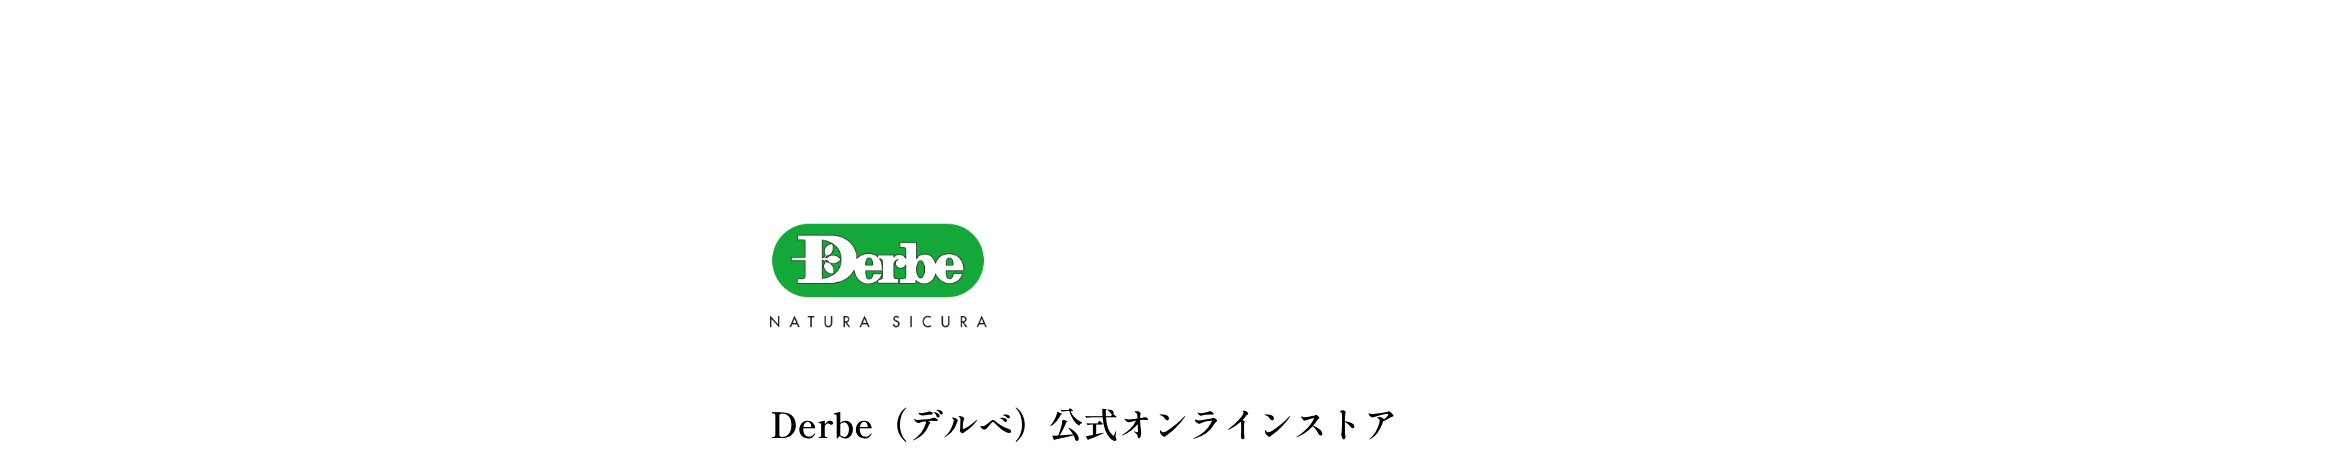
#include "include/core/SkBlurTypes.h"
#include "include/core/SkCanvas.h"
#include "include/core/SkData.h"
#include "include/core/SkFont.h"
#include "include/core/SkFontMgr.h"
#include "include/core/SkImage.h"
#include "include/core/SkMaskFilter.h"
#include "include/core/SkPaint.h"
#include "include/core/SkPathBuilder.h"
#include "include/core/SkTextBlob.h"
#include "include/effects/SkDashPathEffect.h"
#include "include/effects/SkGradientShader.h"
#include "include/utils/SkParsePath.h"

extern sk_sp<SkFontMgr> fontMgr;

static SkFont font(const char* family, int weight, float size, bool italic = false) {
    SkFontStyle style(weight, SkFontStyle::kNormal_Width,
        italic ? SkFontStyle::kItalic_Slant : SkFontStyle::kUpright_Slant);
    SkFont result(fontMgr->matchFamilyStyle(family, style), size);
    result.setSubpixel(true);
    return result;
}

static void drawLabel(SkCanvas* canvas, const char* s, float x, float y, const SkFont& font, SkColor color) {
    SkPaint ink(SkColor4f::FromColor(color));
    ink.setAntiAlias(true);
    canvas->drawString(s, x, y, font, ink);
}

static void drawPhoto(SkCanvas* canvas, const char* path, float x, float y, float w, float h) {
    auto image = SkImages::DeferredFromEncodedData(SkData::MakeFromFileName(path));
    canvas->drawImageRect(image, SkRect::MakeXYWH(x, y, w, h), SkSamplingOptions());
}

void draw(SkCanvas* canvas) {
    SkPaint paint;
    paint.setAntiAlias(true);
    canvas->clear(0xFFFFFFFF);
    drawPhoto(canvas, "assets/img1.png", 770, 223, 217, 105);
    SkFont font1 = font("Shippori Mincho", 600, 35);
    drawLabel(canvas, "Derbe（デルべ）公式オンラインストア", 770, 438, font1, 0xFF000000);
}
